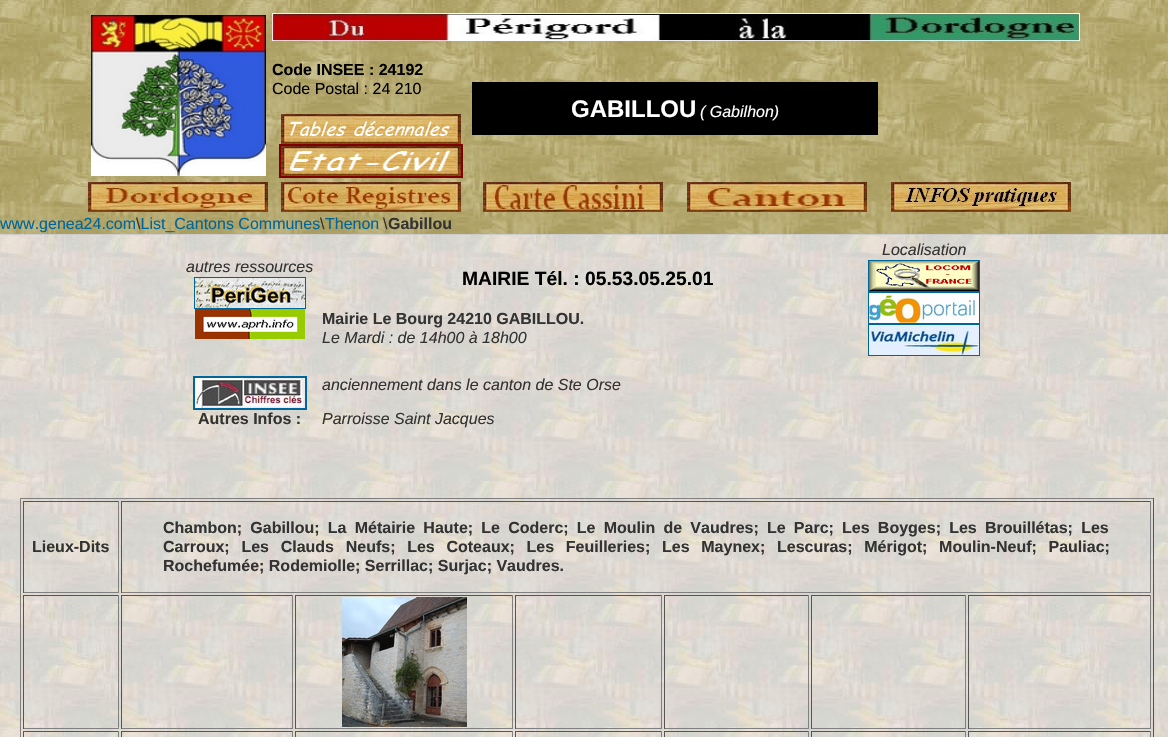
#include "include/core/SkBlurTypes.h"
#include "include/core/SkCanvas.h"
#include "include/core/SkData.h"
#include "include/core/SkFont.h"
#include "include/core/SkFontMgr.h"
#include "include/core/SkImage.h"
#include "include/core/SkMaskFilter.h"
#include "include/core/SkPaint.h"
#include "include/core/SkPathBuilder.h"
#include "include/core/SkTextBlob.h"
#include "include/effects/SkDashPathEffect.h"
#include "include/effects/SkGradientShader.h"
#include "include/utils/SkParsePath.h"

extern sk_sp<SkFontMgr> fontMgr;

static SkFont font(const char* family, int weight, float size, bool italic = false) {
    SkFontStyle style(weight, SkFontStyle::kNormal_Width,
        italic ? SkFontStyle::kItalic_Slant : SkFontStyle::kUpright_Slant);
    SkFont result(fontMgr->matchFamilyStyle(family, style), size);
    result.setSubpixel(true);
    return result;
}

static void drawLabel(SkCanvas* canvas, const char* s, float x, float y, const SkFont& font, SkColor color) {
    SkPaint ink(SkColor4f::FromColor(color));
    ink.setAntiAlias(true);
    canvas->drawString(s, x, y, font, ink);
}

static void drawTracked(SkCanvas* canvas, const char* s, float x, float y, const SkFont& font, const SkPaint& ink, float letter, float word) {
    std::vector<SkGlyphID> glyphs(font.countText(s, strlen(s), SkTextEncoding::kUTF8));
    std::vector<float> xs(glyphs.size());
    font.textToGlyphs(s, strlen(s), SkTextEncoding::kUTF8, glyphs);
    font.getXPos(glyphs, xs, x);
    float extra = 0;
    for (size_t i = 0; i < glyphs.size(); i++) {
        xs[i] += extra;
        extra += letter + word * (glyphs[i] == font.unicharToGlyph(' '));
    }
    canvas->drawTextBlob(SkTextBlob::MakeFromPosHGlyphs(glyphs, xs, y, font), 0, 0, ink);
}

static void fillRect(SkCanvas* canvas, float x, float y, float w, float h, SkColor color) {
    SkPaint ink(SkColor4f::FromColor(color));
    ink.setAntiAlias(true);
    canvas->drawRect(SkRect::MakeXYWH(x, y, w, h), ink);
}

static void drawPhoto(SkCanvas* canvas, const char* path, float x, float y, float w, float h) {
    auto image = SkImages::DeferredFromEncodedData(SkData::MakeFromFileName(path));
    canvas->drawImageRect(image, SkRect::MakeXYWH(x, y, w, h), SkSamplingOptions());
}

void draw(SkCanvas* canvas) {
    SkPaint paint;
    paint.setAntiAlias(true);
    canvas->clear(0xFFFFFFFF);
    drawPhoto(canvas, "assets/img1.png", 0, 0, 1168, 234);
    fillRect(canvas, 0, 234, 1168, 1, 0xFFCCCCCC);
    drawPhoto(canvas, "assets/img2.png", 91, 15, 175, 161);
    drawPhoto(canvas, "assets/img3.png", 272, 13, 808, 28);
    SkFont font1 = font("Liberation Sans", 700, 16);
    drawLabel(canvas, "Code INSEE : 24192", 272, 75, font1, 0xFF000000);
    SkFont font2 = font("Liberation Sans", 400, 16);
    drawLabel(canvas, "Code Postal : 24 210", 272, 94, font2, 0xFF000000);
    drawPhoto(canvas, "assets/img4.png", 281, 114, 180, 30);
    drawPhoto(canvas, "assets/img5.png", 279, 144, 184, 34);
    fillRect(canvas, 472, 82, 406, 53, 0xFF000000);
    SkFont font3 = font("Liberation Sans", 700, 24);
    drawLabel(canvas, "GABILLOU", 571, 117, font3, 0xFFFFFFFF);
    SkFont font4 = font("Liberation Sans", 400, 16, true);
    drawLabel(canvas, "( Gabilhon)", 700, 117, font4, 0xFFFFFFFF);
    drawPhoto(canvas, "assets/img6.png", 88, 182, 180, 30);
    drawPhoto(canvas, "assets/img7.png", 281, 182, 180, 30);
    drawPhoto(canvas, "assets/img8.png", 483, 182, 180, 30);
    drawPhoto(canvas, "assets/img9.png", 687, 182, 180, 30);
    drawPhoto(canvas, "assets/img10.png", 891, 182, 180, 30);
    drawLabel(canvas, "www.genea24.com List_Cantons Communes", 0, 229, font2, 0xFF006699);
    drawLabel(canvas, "\\", 136, 229, font2, 0xFF333333);
    drawLabel(canvas, "\\", 320, 229, font2, 0xFF333333);
    drawLabel(canvas, "Thenon", 325, 229, font2, 0xFF006699);
    drawLabel(canvas, "\\", 383, 229, font2, 0xFF333333);
    drawLabel(canvas, "Gabillou", 388, 229, font1, 0xFF333333);
    drawPhoto(canvas, "assets/img11.png", 0, 235, 1168, 502);
    drawLabel(canvas, "Localisation", 882, 255, font4, 0xFF333333);
    paint.setStroke(true);
    paint.setStrokeWidth(1);
    paint.setColor(0xFF006699);
    canvas->drawRect(SkRect::MakeXYWH(868.5f, 260.5f, 111, 31), paint);
    canvas->drawRect(SkRect::MakeXYWH(868.5f, 292.5f, 111, 31), paint);
    canvas->drawRect(SkRect::MakeXYWH(868.5f, 324.5f, 111, 31), paint);
    drawPhoto(canvas, "assets/img12.png", 869, 261, 110, 30);
    drawPhoto(canvas, "assets/img13.png", 869, 293, 110, 30);
    drawPhoto(canvas, "assets/img14.png", 869, 325, 110, 30);
    drawLabel(canvas, "autres ressources", 186, 272, font4, 0xFF333333);
    canvas->drawRect(SkRect::MakeXYWH(194.5f, 277.5f, 111, 31), paint);
    drawPhoto(canvas, "assets/img15.png", 195, 278, 110, 30);
    drawPhoto(canvas, "assets/img16.png", 195, 309, 110, 30);
    SkFont font5 = font("Liberation Sans", 700, 19.25f);
    drawLabel(canvas, "MAIRIE Tél. : 05.53.05.25.01", 462, 285, font5, 0xFF000000);
    drawLabel(canvas, "Mairie Le Bourg 24210 GABILLOU.", 322, 324, font1, 0xFF333333);
    drawLabel(canvas, "Le Mardi : de 14h00 à 18h00", 322, 343, font4, 0xFF333333);
    paint.setStrokeWidth(2);
    canvas->drawRect(SkRect::MakeXYWH(194, 377, 112, 32), paint);
    drawPhoto(canvas, "assets/img17.png", 195, 378, 110, 30);
    drawLabel(canvas, "Autres Infos :", 198, 424, font1, 0xFF333333);
    drawLabel(canvas, "anciennement dans le canton de Ste Orse", 322, 390, font4, 0xFF333333);
    drawLabel(canvas, "Parroisse Saint Jacques", 322, 424, font4, 0xFF333333);
    fillRect(canvas, 20, 498, 1134, 1, 0xFF808080);
    fillRect(canvas, 1153, 498, 1, 239, 0xFF555555);
    fillRect(canvas, 20, 498, 1, 239, 0xFF808080);
    fillRect(canvas, 23, 501, 96, 1, 0xFF555555);
    fillRect(canvas, 118, 501, 1, 92, 0xFF808080);
    fillRect(canvas, 23, 592, 96, 1, 0xFF808080);
    fillRect(canvas, 23, 501, 1, 92, 0xFF555555);
    drawLabel(canvas, "Lieux-Dits", 32, 552, font1, 0xFF333333);
    fillRect(canvas, 121, 501, 1030, 1, 0xFF555555);
    fillRect(canvas, 1150, 501, 1, 92, 0xFF808080);
    fillRect(canvas, 121, 592, 1030, 1, 0xFF808080);
    fillRect(canvas, 121, 501, 1, 92, 0xFF555555);
    paint.setStroke(false);
    paint.setColor(0xFF333333);
    drawTracked(canvas, "Chambon; Gabillou; La Métairie Haute; Le Coderc; Le Moulin de Vaudres; Le Parc; Les Boyges; Les Brouillétas; Les", 163, 533, font1, paint, 0, 3.75f);
    drawTracked(canvas, "Carroux; Les Clauds Neufs; Les Coteaux; Les Feuilleries; Les Maynex; Lescuras; Mérigot; Moulin-Neuf; Pauliac;", 163, 552, font1, paint, 0, 7.25f);
    drawLabel(canvas, "Rochefumée; Rodemiolle; Serrillac; Surjac; Vaudres.", 163, 571, font1, 0xFF333333);
    fillRect(canvas, 23, 595, 96, 1, 0xFF555555);
    fillRect(canvas, 118, 595, 1, 134, 0xFF808080);
    fillRect(canvas, 23, 728, 96, 1, 0xFF808080);
    fillRect(canvas, 23, 595, 1, 134, 0xFF555555);
    fillRect(canvas, 121, 595, 172, 1, 0xFF555555);
    fillRect(canvas, 292, 595, 1, 134, 0xFF808080);
    fillRect(canvas, 121, 728, 172, 1, 0xFF808080);
    fillRect(canvas, 121, 595, 1, 134, 0xFF555555);
    fillRect(canvas, 295, 595, 218, 1, 0xFF555555);
    fillRect(canvas, 512, 595, 1, 134, 0xFF808080);
    fillRect(canvas, 295, 728, 218, 1, 0xFF808080);
    fillRect(canvas, 295, 595, 1, 134, 0xFF555555);
    drawPhoto(canvas, "assets/img18.png", 342, 597, 125, 130);
    fillRect(canvas, 515, 595, 147, 1, 0xFF555555);
    fillRect(canvas, 661, 595, 1, 134, 0xFF808080);
    fillRect(canvas, 515, 728, 147, 1, 0xFF808080);
    fillRect(canvas, 515, 595, 1, 134, 0xFF555555);
    fillRect(canvas, 664, 595, 145, 1, 0xFF555555);
    fillRect(canvas, 808, 595, 1, 134, 0xFF808080);
    fillRect(canvas, 664, 728, 145, 1, 0xFF808080);
    fillRect(canvas, 664, 595, 1, 134, 0xFF555555);
    fillRect(canvas, 811, 595, 155, 1, 0xFF555555);
    fillRect(canvas, 965, 595, 1, 134, 0xFF808080);
    fillRect(canvas, 811, 728, 155, 1, 0xFF808080);
    fillRect(canvas, 811, 595, 1, 134, 0xFF555555);
    fillRect(canvas, 968, 595, 183, 1, 0xFF555555);
    fillRect(canvas, 1150, 595, 1, 134, 0xFF808080);
    fillRect(canvas, 968, 728, 183, 1, 0xFF808080);
    fillRect(canvas, 968, 595, 1, 134, 0xFF555555);
    fillRect(canvas, 23, 731, 96, 1, 0xFF555555);
    fillRect(canvas, 118, 731, 1, 6, 0xFF808080);
    fillRect(canvas, 23, 731, 1, 6, 0xFF555555);
    fillRect(canvas, 121, 731, 172, 1, 0xFF555555);
    fillRect(canvas, 292, 731, 1, 6, 0xFF808080);
    fillRect(canvas, 121, 731, 1, 6, 0xFF555555);
    fillRect(canvas, 295, 731, 218, 1, 0xFF555555);
    fillRect(canvas, 512, 731, 1, 6, 0xFF808080);
    fillRect(canvas, 295, 731, 1, 6, 0xFF555555);
    fillRect(canvas, 515, 731, 147, 1, 0xFF555555);
    fillRect(canvas, 661, 731, 1, 6, 0xFF808080);
    fillRect(canvas, 515, 731, 1, 6, 0xFF555555);
    fillRect(canvas, 664, 731, 145, 1, 0xFF555555);
    fillRect(canvas, 808, 731, 1, 6, 0xFF808080);
    fillRect(canvas, 664, 731, 1, 6, 0xFF555555);
    fillRect(canvas, 811, 731, 155, 1, 0xFF555555);
    fillRect(canvas, 965, 731, 1, 6, 0xFF808080);
    fillRect(canvas, 811, 731, 1, 6, 0xFF555555);
    fillRect(canvas, 968, 731, 183, 1, 0xFF555555);
    fillRect(canvas, 1150, 731, 1, 6, 0xFF808080);
    fillRect(canvas, 968, 731, 1, 6, 0xFF555555);
}
